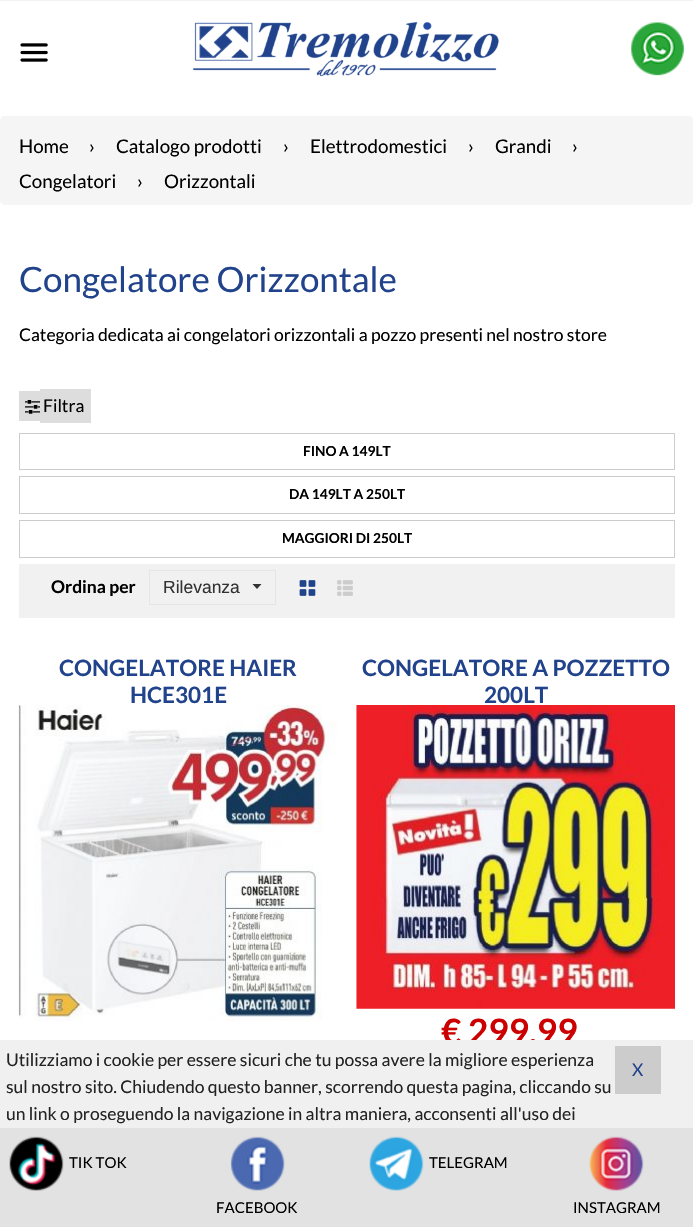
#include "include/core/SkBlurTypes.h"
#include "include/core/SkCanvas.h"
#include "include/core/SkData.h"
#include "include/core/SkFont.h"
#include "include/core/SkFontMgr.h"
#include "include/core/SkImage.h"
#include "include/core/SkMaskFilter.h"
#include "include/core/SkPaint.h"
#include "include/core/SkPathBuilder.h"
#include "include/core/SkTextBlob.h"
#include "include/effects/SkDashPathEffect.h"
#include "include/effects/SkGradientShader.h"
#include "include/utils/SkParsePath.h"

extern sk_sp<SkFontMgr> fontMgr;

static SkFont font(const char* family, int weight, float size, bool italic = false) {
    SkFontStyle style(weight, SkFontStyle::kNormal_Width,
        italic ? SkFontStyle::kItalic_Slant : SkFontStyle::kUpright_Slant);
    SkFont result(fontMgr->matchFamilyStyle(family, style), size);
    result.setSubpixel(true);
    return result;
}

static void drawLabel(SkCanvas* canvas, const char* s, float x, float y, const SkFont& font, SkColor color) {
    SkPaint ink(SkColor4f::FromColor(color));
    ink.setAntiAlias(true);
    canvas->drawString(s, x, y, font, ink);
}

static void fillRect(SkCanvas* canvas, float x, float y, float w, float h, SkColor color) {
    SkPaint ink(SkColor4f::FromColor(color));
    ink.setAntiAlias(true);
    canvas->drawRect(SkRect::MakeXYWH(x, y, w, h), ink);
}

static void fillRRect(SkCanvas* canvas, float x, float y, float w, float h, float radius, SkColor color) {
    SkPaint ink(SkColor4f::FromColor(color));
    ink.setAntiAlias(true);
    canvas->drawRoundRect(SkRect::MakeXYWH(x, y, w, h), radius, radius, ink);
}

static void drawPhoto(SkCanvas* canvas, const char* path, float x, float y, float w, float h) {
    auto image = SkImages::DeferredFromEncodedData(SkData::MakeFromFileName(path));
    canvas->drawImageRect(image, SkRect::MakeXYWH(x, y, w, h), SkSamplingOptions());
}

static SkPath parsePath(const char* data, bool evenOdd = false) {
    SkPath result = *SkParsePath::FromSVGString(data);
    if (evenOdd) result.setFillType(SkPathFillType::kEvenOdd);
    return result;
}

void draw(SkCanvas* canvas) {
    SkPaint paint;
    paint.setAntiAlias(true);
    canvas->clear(0xFFFFFFFF);
    fillRect(canvas, 0, 0, 693, 1, 0xFFF2F2F2);
    drawPhoto(canvas, "assets/img1.png", 20, 43, 28, 19);
    drawPhoto(canvas, "assets/img2.png", 192, 22, 307, 55);
    drawPhoto(canvas, "assets/img3.png", 631, 22, 53, 54);
    fillRRect(canvas, 0, 116, 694, 89, 5, 0xFFF5F5F5);
    SkFont font1 = font("Lato", 400, 18.75f);
    drawLabel(canvas, "Home", 19, 153, font1, 0xFF000000);
    drawLabel(canvas, "›", 89, 153, font1, 0xFF000000);
    drawLabel(canvas, "Catalogo prodotti", 116, 153, font1, 0xFF000000);
    drawLabel(canvas, "›", 283, 153, font1, 0xFF000000);
    drawLabel(canvas, "Elettrodomestici", 310, 153, font1, 0xFF000000);
    drawLabel(canvas, "›", 468, 153, font1, 0xFF000000);
    drawLabel(canvas, "Grandi", 495, 153, font1, 0xFF000000);
    drawLabel(canvas, "›", 572, 153, font1, 0xFF000000);
    drawLabel(canvas, "Congelatori", 19, 188, font1, 0xFF000000);
    drawLabel(canvas, "›", 137, 188, font1, 0xFF000000);
    drawLabel(canvas, "Orizzontali", 164, 188, font1, 0xFF000000);
    SkFont font2 = font("Lato", 400, 35);
    drawLabel(canvas, "Congelatore Orizzontale", 19, 292, font2, 0xFF21438B);
    SkFont font3 = font("Lato", 400, 17.5f);
    drawLabel(canvas, "Categoria dedicata ai congelatori orizzontali a pozzo presenti nel nostro store", 19, 341, font3, 0xFF000000);
    fillRect(canvas, 19, 391, 21, 30, 0xFFDDDDDD);
    fillRect(canvas, 40, 389, 51, 34, 0xFFDDDDDD);
    drawPhoto(canvas, "assets/img4.png", 25, 400, 15, 14);
    drawLabel(canvas, "Filtra", 43, 412, font3, 0xFF000000);
    paint.setStroke(true);
    paint.setStrokeWidth(1);
    paint.setColor(0xFFCCCCCC);
    canvas->drawRect(SkRect::MakeXYWH(19.5f, 433.5f, 655, 36), paint);
    SkFont font4 = font("Lato", 700, 13.75f);
    drawLabel(canvas, "FINO A 149LT", 303, 456, font4, 0xFF000000);
    canvas->drawRect(SkRect::MakeXYWH(19.5f, 476.5f, 655, 37), paint);
    drawLabel(canvas, "DA 149LT A 250LT", 289, 499, font4, 0xFF000000);
    canvas->drawRect(SkRect::MakeXYWH(19.5f, 520.5f, 655, 37), paint);
    drawLabel(canvas, "MAGGIORI DI 250LT", 282, 543, font4, 0xFF000000);
    fillRect(canvas, 19, 564, 656, 54, 0xFFF1F1F1);
    SkFont font5 = font("Lato", 700, 17.5f);
    drawLabel(canvas, "Ordina per", 51, 593, font5, 0xFF000000);
    paint.setStroke(false);
    paint.setColor(0xFF333333);
    canvas->drawPath(parsePath("M252.5 584L257 589L261.5 584Z"), paint);
    paint.setStroke(true);
    paint.setColor(0xFFE5E5E5);
    canvas->drawRect(SkRect::MakeXYWH(149.5f, 570.5f, 126, 34), paint);
    SkFont font6 = font("Liberation Sans", 400, 17.5f);
    drawLabel(canvas, "Rilevanza", 163, 593, font6, 0xFF333333);
    drawPhoto(canvas, "assets/img5.png", 299, 580, 17, 16);
    drawPhoto(canvas, "assets/img6.png", 337, 580, 16, 16);
    SkFont font7 = font("Lato", 700, 22.5f);
    drawLabel(canvas, "CONGELATORE HAIER", 59, 676, font7, 0xFF21438B);
    drawLabel(canvas, "HCE301E", 130, 703, font7, 0xFF21438B);
    drawPhoto(canvas, "assets/img7.png", 18, 705, 319, 317);
    drawLabel(canvas, "CONGELATORE A POZZETTO", 362, 676, font7, 0xFF21438B);
    drawLabel(canvas, "200LT", 484, 703, font7, 0xFF21438B);
    drawPhoto(canvas, "assets/img8.png", 356, 705, 319, 304);
    SkFont font8 = font("Lato", 700, 35);
    drawLabel(canvas, "€ 299.99", 441, 1044, font8, 0xFFCC0001);
    fillRect(canvas, 0, 1128, 693, 99, 0xFFE2E2E2);
    drawPhoto(canvas, "assets/img9.png", 9, 1136, 55, 55);
    SkFont font9 = font("Lato", 400, 15);
    drawLabel(canvas, "TIK TOK", 69, 1168, font9, 0xFF000000);
    drawPhoto(canvas, "assets/img10.png", 369, 1136, 55, 55);
    drawLabel(canvas, "TELEGRAM", 429, 1168, font9, 0xFF000000);
    drawPhoto(canvas, "assets/img11.png", 230, 1136, 55, 55);
    drawLabel(canvas, "FACEBOOK", 216, 1213, font9, 0xFF000000);
    drawPhoto(canvas, "assets/img12.png", 589, 1136, 55, 55);
    drawLabel(canvas, "INSTAGRAM", 573, 1213, font9, 0xFF000000);
    fillRect(canvas, 0, 1040, 693, 88, 0xFFF0F0F0);
    drawLabel(canvas, "Utilizziamo i cookie per essere sicuri che tu possa avere la migliore esperienza", 6, 1066, font3, 0xFF232323);
    drawLabel(canvas, "sul nostro sito. Chiudendo questo banner, scorrendo questa pagina, cliccando su", 6, 1093, font3, 0xFF232323);
    drawLabel(canvas, "un link o proseguendo la navigazione in altra maniera, acconsenti all'uso dei", 6, 1120, font3, 0xFF232323);
    fillRect(canvas, 615, 1046, 46, 48, 0xFFCCCCCC);
    drawLabel(canvas, "X", 632, 1076, font3, 0xFF21438B);
}
